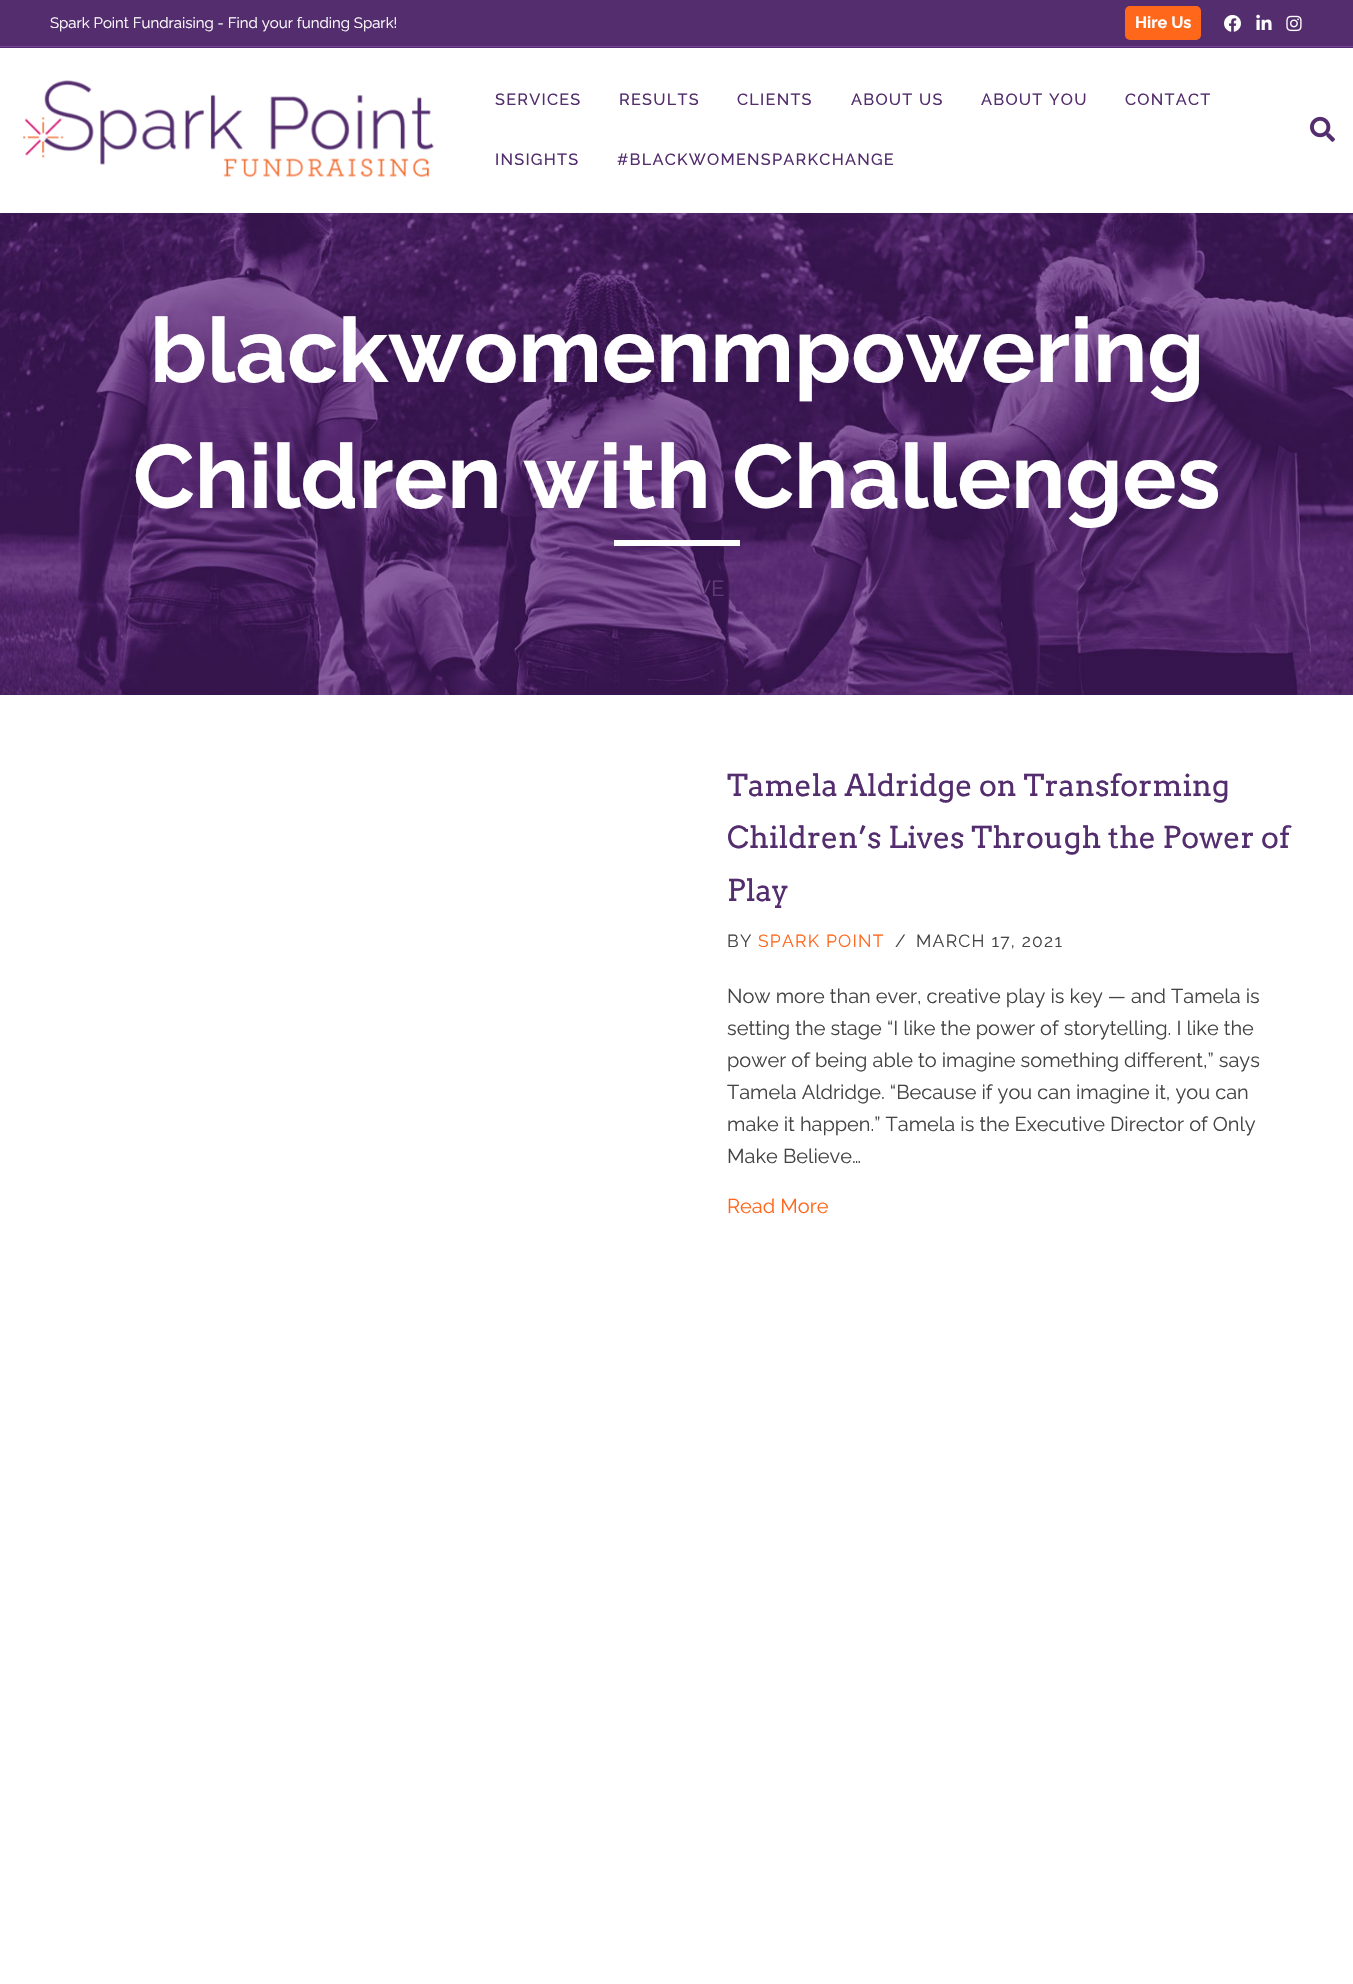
#include "include/core/SkBlurTypes.h"
#include "include/core/SkCanvas.h"
#include "include/core/SkData.h"
#include "include/core/SkFont.h"
#include "include/core/SkFontMgr.h"
#include "include/core/SkImage.h"
#include "include/core/SkMaskFilter.h"
#include "include/core/SkPaint.h"
#include "include/core/SkPathBuilder.h"
#include "include/core/SkTextBlob.h"
#include "include/effects/SkDashPathEffect.h"
#include "include/effects/SkGradientShader.h"
#include "include/utils/SkParsePath.h"

extern sk_sp<SkFontMgr> fontMgr;

static SkFont font(const char* family, int weight, float size, bool italic = false) {
    SkFontStyle style(weight, SkFontStyle::kNormal_Width,
        italic ? SkFontStyle::kItalic_Slant : SkFontStyle::kUpright_Slant);
    SkFont result(fontMgr->matchFamilyStyle(family, style), size);
    result.setSubpixel(true);
    return result;
}

static void drawLabel(SkCanvas* canvas, const char* s, float x, float y, const SkFont& font, SkColor color) {
    SkPaint ink(SkColor4f::FromColor(color));
    ink.setAntiAlias(true);
    canvas->drawString(s, x, y, font, ink);
}

static void drawTracked(SkCanvas* canvas, const char* s, float x, float y, const SkFont& font, const SkPaint& ink, float letter, float word) {
    std::vector<SkGlyphID> glyphs(font.countText(s, strlen(s), SkTextEncoding::kUTF8));
    std::vector<float> xs(glyphs.size());
    font.textToGlyphs(s, strlen(s), SkTextEncoding::kUTF8, glyphs);
    font.getXPos(glyphs, xs, x);
    float extra = 0;
    for (size_t i = 0; i < glyphs.size(); i++) {
        xs[i] += extra;
        extra += letter + word * (glyphs[i] == font.unicharToGlyph(' '));
    }
    canvas->drawTextBlob(SkTextBlob::MakeFromPosHGlyphs(glyphs, xs, y, font), 0, 0, ink);
}

static void fillRect(SkCanvas* canvas, float x, float y, float w, float h, SkColor color) {
    SkPaint ink(SkColor4f::FromColor(color));
    ink.setAntiAlias(true);
    canvas->drawRect(SkRect::MakeXYWH(x, y, w, h), ink);
}

static void fillRRect(SkCanvas* canvas, float x, float y, float w, float h, float radius, SkColor color) {
    SkPaint ink(SkColor4f::FromColor(color));
    ink.setAntiAlias(true);
    canvas->drawRoundRect(SkRect::MakeXYWH(x, y, w, h), radius, radius, ink);
}

static void drawPhoto(SkCanvas* canvas, const char* path, float x, float y, float w, float h) {
    auto image = SkImages::DeferredFromEncodedData(SkData::MakeFromFileName(path));
    canvas->drawImageRect(image, SkRect::MakeXYWH(x, y, w, h), SkSamplingOptions());
}

void draw(SkCanvas* canvas) {
    SkPaint paint;
    paint.setAntiAlias(true);
    canvas->clear(0xFFFFFFFF);
    fillRect(canvas, 0, 0, 1353, 48, 0xFF532D6D);
    fillRect(canvas, 0, 46, 1353, 1, 0xFF77409C);
    SkFont font1 = font("Raleway", 400, 15);
    drawLabel(canvas, "Spark Point Fundraising - Find your funding Spark!", 50, 28, font1, 0xFFFFFFFF);
    fillRRect(canvas, 1125, 6, 76, 34, 5, 0xFFFF671B);
    SkFont font2 = font("Raleway", 700, 16.25f);
    drawLabel(canvas, "Hire Us", 1135, 28, font2, 0xFFFFFFFF);
    drawPhoto(canvas, "assets/img1.png", 1224, 15, 17, 17);
    drawPhoto(canvas, "assets/img2.png", 1256, 14, 16, 16);
    drawPhoto(canvas, "assets/img3.png", 1286, 15, 16, 17);
    drawPhoto(canvas, "assets/img4.png", 23, 80, 411, 97);
    SkFont font3 = font("Raleway", 500, 16.25f);
    paint.setColor(0xFF532D6D);
    drawTracked(canvas, "SERVICES", 495, 105, font3, paint, 1.25f, 0);
    drawTracked(canvas, "RESULTS", 619, 105, font3, paint, 1.25f, 0);
    drawTracked(canvas, "CLIENTS", 737, 105, font3, paint, 1.25f, 0);
    drawTracked(canvas, "ABOUT US", 851, 105, font3, paint, 1.25f, 0);
    drawTracked(canvas, "ABOUT YOU", 981, 105, font3, paint, 1.25f, 0);
    drawTracked(canvas, "CONTACT", 1125, 105, font3, paint, 1.25f, 0);
    drawTracked(canvas, "INSIGHTS", 495, 165, font3, paint, 1.25f, 0);
    drawTracked(canvas, "#BLACKWOMENSPARKCHANGE", 617, 165, font3, paint, 1.25f, 0);
    drawPhoto(canvas, "assets/img5.png", 1310, 116, 25, 26);
    drawPhoto(canvas, "assets/img6.png", 0, 213, 1353, 482);
    SkFont font4 = font("Raleway", 700, 90);
    drawLabel(canvas, "blackwomenmpowering", 150, 382, font4, 0xFFFFFFFF);
    drawLabel(canvas, "Children with Challenges", 133, 508, font4, 0xFFFFFFFF);
    fillRect(canvas, 614, 540, 126, 6, 0xFFFFFFFF);
    SkFont font5 = font("Raleway", 400, 22);
    drawLabel(canvas, "VE", 696, 596, font5, 0xFF643A7C);
    SkFont font6 = font("Arvo", 400, 30);
    drawLabel(canvas, "Tamela Aldridge on Transforming", 727, 796, font6, 0xFF532D6D);
    drawLabel(canvas, "Children’s Lives Through the Power of", 727, 848, font6, 0xFF532D6D);
    drawLabel(canvas, "Play", 727, 901, font6, 0xFF532D6D);
    SkFont font7 = font("Raleway", 400, 17.5f);
    paint.setColor(0xFF444444);
    drawTracked(canvas, "BY", 727, 947, font7, paint, 1.25f, 0);
    paint.setColor(0xFFFF671B);
    drawTracked(canvas, "SPARK POINT", 758, 947, font7, paint, 1.25f, 0);
    paint.setColor(0xFF444444);
    drawTracked(canvas, "/", 895, 947, font7, paint, 1.25f, 0);
    drawTracked(canvas, "MARCH 17, 2021", 916, 947, font7, paint, 1.25f, 0);
    SkFont font8 = font("Raleway", 400, 20);
    drawLabel(canvas, "Now more than ever, creative play is key — and Tamela is", 727, 1003, font8, 0xFF444444);
    drawLabel(canvas, "setting the stage “I like the power of storytelling. I like the", 727, 1035, font8, 0xFF444444);
    drawLabel(canvas, "power of being able to imagine something different,” says", 727, 1067, font8, 0xFF444444);
    drawLabel(canvas, "Tamela Aldridge. “Because if you can imagine it, you can", 727, 1099, font8, 0xFF444444);
    drawLabel(canvas, "make it happen.” Tamela is the Executive Director of Only", 727, 1131, font8, 0xFF444444);
    drawLabel(canvas, "Make Believe…", 727, 1163, font8, 0xFF444444);
    drawLabel(canvas, "Read More", 727, 1213, font8, 0xFFFF671B);
}
